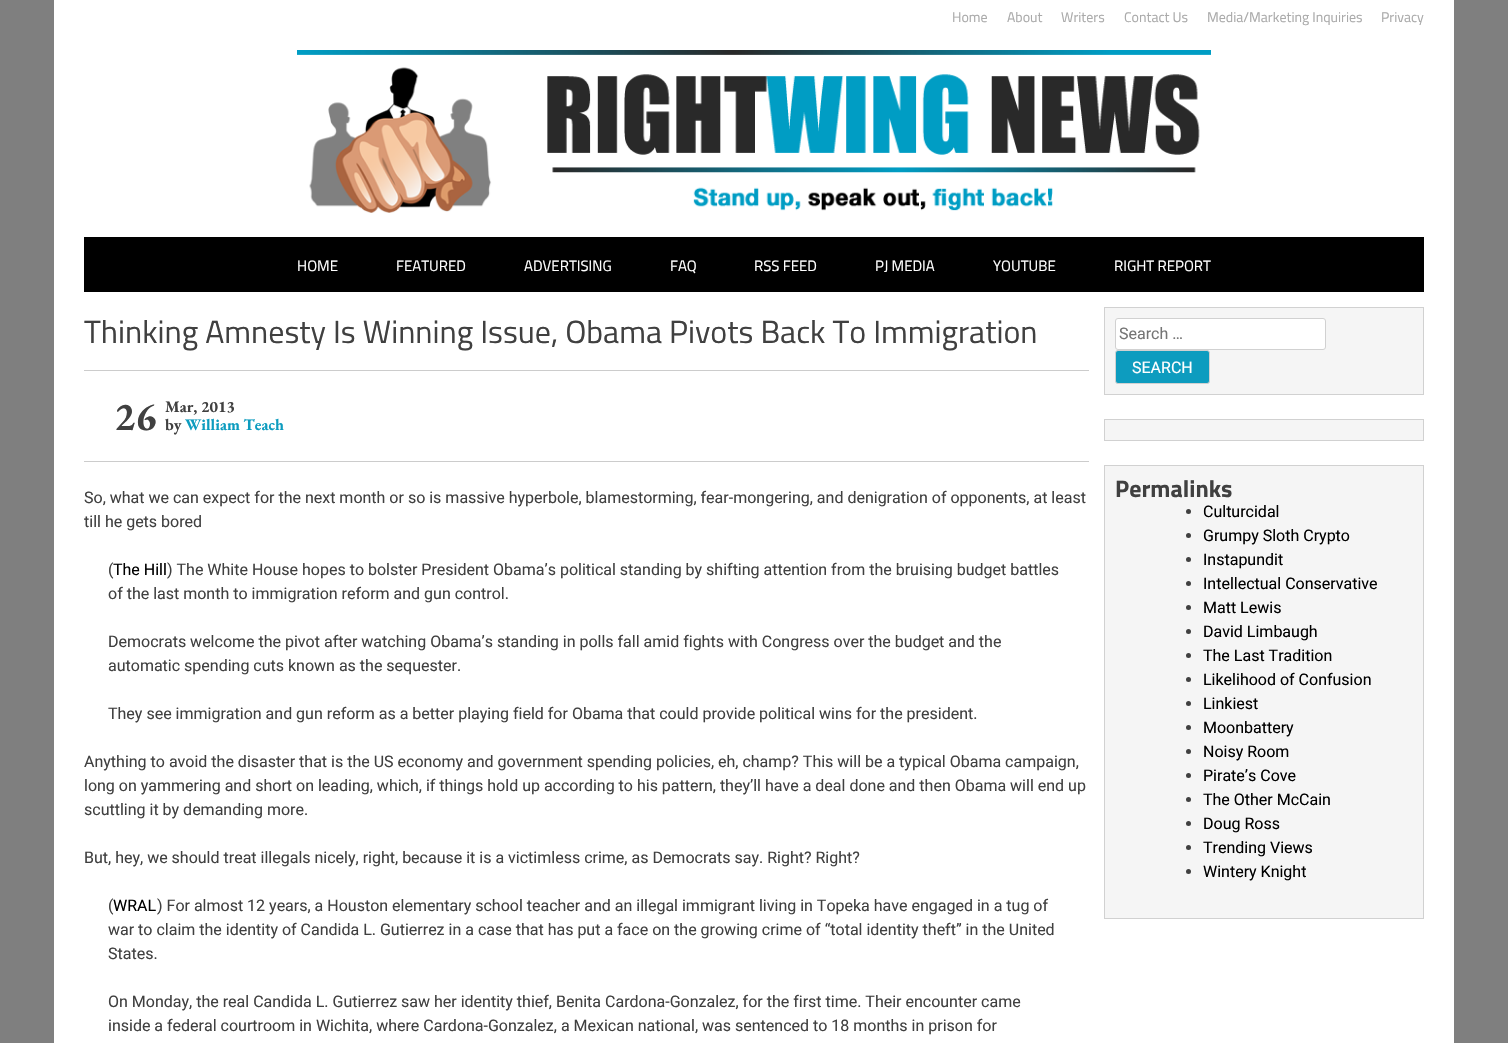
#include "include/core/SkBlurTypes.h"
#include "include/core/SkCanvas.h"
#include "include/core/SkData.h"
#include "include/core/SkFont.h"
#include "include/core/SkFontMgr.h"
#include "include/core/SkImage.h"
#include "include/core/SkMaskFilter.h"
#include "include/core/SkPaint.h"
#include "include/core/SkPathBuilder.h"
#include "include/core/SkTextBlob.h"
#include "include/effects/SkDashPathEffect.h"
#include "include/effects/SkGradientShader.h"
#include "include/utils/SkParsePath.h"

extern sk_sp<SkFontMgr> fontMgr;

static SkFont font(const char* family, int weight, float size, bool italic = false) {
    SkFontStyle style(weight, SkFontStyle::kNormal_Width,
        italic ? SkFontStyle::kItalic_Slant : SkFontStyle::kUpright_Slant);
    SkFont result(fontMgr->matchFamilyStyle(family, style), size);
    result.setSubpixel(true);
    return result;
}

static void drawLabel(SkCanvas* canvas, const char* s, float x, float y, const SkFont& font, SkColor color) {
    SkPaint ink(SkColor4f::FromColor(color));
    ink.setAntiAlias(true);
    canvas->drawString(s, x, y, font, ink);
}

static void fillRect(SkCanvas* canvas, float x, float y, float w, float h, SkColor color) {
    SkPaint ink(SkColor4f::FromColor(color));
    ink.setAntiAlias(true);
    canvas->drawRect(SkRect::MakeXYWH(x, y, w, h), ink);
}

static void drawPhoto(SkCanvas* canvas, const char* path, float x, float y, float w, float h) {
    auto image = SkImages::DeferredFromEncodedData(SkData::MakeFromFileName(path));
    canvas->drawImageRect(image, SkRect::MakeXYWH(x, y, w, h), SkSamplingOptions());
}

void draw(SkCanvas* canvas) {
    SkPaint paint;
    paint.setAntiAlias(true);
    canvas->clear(0xFF7F7F7F);
    fillRect(canvas, 54, 0, 1400, 1043, 0xFFFFFFFF);
    SkFont font1 = font("Titillium Web", 400, 14);
    drawLabel(canvas, "Home", 952, 22, font1, 0xFFAAAAAA);
    drawLabel(canvas, "About", 1007, 22, font1, 0xFFAAAAAA);
    drawLabel(canvas, "Writers", 1061, 22, font1, 0xFFAAAAAA);
    drawLabel(canvas, "Contact Us", 1124, 22, font1, 0xFFAAAAAA);
    drawLabel(canvas, "Media/Marketing Inquiries", 1207, 22, font1, 0xFFAAAAAA);
    drawLabel(canvas, "Privacy", 1381, 22, font1, 0xFFAAAAAA);
    drawPhoto(canvas, "assets/img1.png", 297, 50, 914, 163);
    fillRect(canvas, 84, 237, 1340, 55, 0xFF000000);
    SkFont font2 = font("Titillium Web", 400, 15);
    drawLabel(canvas, "HOME", 297, 271, font2, 0xFFFFFFFF);
    drawLabel(canvas, "FEATURED", 396, 271, font2, 0xFFFFFFFF);
    drawLabel(canvas, "ADVERTISING", 524, 271, font2, 0xFFFFFFFF);
    drawLabel(canvas, "FAQ", 670, 271, font2, 0xFFFFFFFF);
    drawLabel(canvas, "RSS FEED", 754, 271, font2, 0xFFFFFFFF);
    drawLabel(canvas, "PJ MEDIA", 875, 271, font2, 0xFFFFFFFF);
    drawLabel(canvas, "YOUTUBE", 993, 271, font2, 0xFFFFFFFF);
    drawLabel(canvas, "RIGHT REPORT", 1114, 271, font2, 0xFFFFFFFF);
    SkFont font3 = font("Titillium Web", 400, 32);
    drawLabel(canvas, "Thinking Amnesty Is Winning Issue, Obama Pivots Back To Immigration", 84, 343, font3, 0xFF404040);
    fillRect(canvas, 84, 370, 1005, 1, 0xFFCCCCCC);
    fillRect(canvas, 84, 461, 1005, 1, 0xFFCCCCCC);
    SkFont font4 = font("EB Garamond", 700, 40);
    drawLabel(canvas, "26", 114, 430, font4, 0xFF404040);
    SkFont font5 = font("EB Garamond", 700, 16);
    drawLabel(canvas, "Mar, 2013", 165, 412, font5, 0xFF404040);
    drawLabel(canvas, "by", 165, 430, font5, 0xFF404040);
    drawLabel(canvas, "William Teach", 185, 430, font5, 0xFF0D9CBF);
    SkFont font6 = font("Roboto", 400, 16);
    drawLabel(canvas, "So, what we can expect for the next month or so is massive hyperbole, blamestorming, fear-mongering, and denigration of opponents, at least", 84, 503, font6, 0xFF404040);
    drawLabel(canvas, "till he gets bored", 84, 527, font6, 0xFF404040);
    drawLabel(canvas, "(", 108, 575, font6, 0xFF404040);
    drawLabel(canvas, "The Hill", 113, 575, font6, 0xFF000000);
    drawLabel(canvas, ") The White House hopes to bolster President Obama’s political standing by shifting attention from the bruising budget battles", 167, 575, font6, 0xFF404040);
    drawLabel(canvas, "of the last month to immigration reform and gun control.", 108, 599, font6, 0xFF404040);
    drawLabel(canvas, "Democrats welcome the pivot after watching Obama’s standing in polls fall amid fights with Congress over the budget and the", 108, 647, font6, 0xFF404040);
    drawLabel(canvas, "automatic spending cuts known as the sequester.", 108, 671, font6, 0xFF404040);
    drawLabel(canvas, "They see immigration and gun reform as a better playing field for Obama that could provide political wins for the president.", 108, 719, font6, 0xFF404040);
    drawLabel(canvas, "Anything to avoid the disaster that is the US economy and government spending policies, eh, champ? This will be a typical Obama campaign,", 84, 767, font6, 0xFF404040);
    drawLabel(canvas, "long on yammering and short on leading, which, if things hold up according to his pattern, they’ll have a deal done and then Obama will end up", 84, 791, font6, 0xFF404040);
    drawLabel(canvas, "scuttling it by demanding more.", 84, 815, font6, 0xFF404040);
    drawLabel(canvas, "But, hey, we should treat illegals nicely, right, because it is a victimless crime, as Democrats say. Right? Right?", 84, 863, font6, 0xFF404040);
    drawLabel(canvas, "(", 108, 911, font6, 0xFF404040);
    drawLabel(canvas, "WRAL", 113, 911, font6, 0xFF000000);
    drawLabel(canvas, ") For almost 12 years, a Houston elementary school teacher and an illegal immigrant living in Topeka have engaged in a tug of", 157, 911, font6, 0xFF404040);
    drawLabel(canvas, "war to claim the identity of Candida L. Gutierrez in a case that has put a face on the growing crime of “total identity theft” in the United", 108, 935, font6, 0xFF404040);
    drawLabel(canvas, "States.", 108, 959, font6, 0xFF404040);
    drawLabel(canvas, "On Monday, the real Candida L. Gutierrez saw her identity thief, Benita Cardona-Gonzalez, for the first time. Their encounter came", 108, 1007, font6, 0xFF404040);
    drawLabel(canvas, "inside a federal courtroom in Wichita, where Cardona-Gonzalez, a Mexican national, was sentenced to 18 months in prison for", 108, 1031, font6, 0xFF404040);
    paint.setColor(0xFFF5F5F5);
    canvas->drawRect(SkRect::MakeXYWH(1104.5f, 307.5f, 319, 87), paint);
    paint.setStroke(true);
    paint.setStrokeWidth(1);
    paint.setColor(0xFFD1D1D1);
    canvas->drawRect(SkRect::MakeXYWH(1104.5f, 307.5f, 319, 87), paint);
    paint.setStroke(false);
    paint.setColor(0xFFFFFFFF);
    canvas->drawRoundRect(SkRect::MakeXYWH(1115.5f, 318.5f, 210, 31), 2.5f, 2.5f, paint);
    paint.setStroke(true);
    paint.setColor(0xFFD1D1D1);
    canvas->drawRoundRect(SkRect::MakeXYWH(1115.5f, 318.5f, 210, 31), 2.5f, 2.5f, paint);
    drawLabel(canvas, "Search …", 1119, 339, font6, 0xFF757575);
    paint.setStroke(false);
    paint.setColor(0xFF0D9CBF);
    canvas->drawRoundRect(SkRect::MakeXYWH(1115.5f, 350.5f, 94, 33), 2.5f, 2.5f, paint);
    paint.setStroke(true);
    paint.setColor(0xFFD1D1D1);
    canvas->drawRoundRect(SkRect::MakeXYWH(1115.5f, 350.5f, 94, 33), 2.5f, 2.5f, paint);
    drawLabel(canvas, "SEARCH", 1132, 373, font6, 0xFFFFFFFF);
    paint.setStroke(false);
    paint.setColor(0xFFF5F5F5);
    canvas->drawRect(SkRect::MakeXYWH(1104.5f, 419.5f, 319, 21), paint);
    paint.setStroke(true);
    paint.setColor(0xFFD1D1D1);
    canvas->drawRect(SkRect::MakeXYWH(1104.5f, 419.5f, 319, 21), paint);
    paint.setStroke(false);
    paint.setColor(0xFFF5F5F5);
    canvas->drawRect(SkRect::MakeXYWH(1104.5f, 465.5f, 319, 453), paint);
    paint.setStroke(true);
    paint.setColor(0xFFD1D1D1);
    canvas->drawRect(SkRect::MakeXYWH(1104.5f, 465.5f, 319, 453), paint);
    SkFont font7 = font("Titillium Web", 700, 24);
    drawLabel(canvas, "Permalinks", 1115, 497, font7, 0xFF404040);
    paint.setStroke(false);
    paint.setColor(0xFF404040);
    canvas->drawCircle(1188.5f, 511.5f, 2.5f, paint);
    drawLabel(canvas, "Culturcidal", 1203, 517, font6, 0xFF000000);
    canvas->drawCircle(1188.5f, 535.5f, 2.5f, paint);
    drawLabel(canvas, "Grumpy Sloth Crypto", 1203, 541, font6, 0xFF000000);
    canvas->drawCircle(1188.5f, 559.5f, 2.5f, paint);
    drawLabel(canvas, "Instapundit", 1203, 565, font6, 0xFF000000);
    canvas->drawCircle(1188.5f, 583.5f, 2.5f, paint);
    drawLabel(canvas, "Intellectual Conservative", 1203, 589, font6, 0xFF000000);
    canvas->drawCircle(1188.5f, 607.5f, 2.5f, paint);
    drawLabel(canvas, "Matt Lewis", 1203, 613, font6, 0xFF000000);
    canvas->drawCircle(1188.5f, 631.5f, 2.5f, paint);
    drawLabel(canvas, "David Limbaugh", 1203, 637, font6, 0xFF000000);
    canvas->drawCircle(1188.5f, 655.5f, 2.5f, paint);
    drawLabel(canvas, "The Last Tradition", 1203, 661, font6, 0xFF000000);
    canvas->drawCircle(1188.5f, 679.5f, 2.5f, paint);
    drawLabel(canvas, "Likelihood of Confusion", 1203, 685, font6, 0xFF000000);
    canvas->drawCircle(1188.5f, 703.5f, 2.5f, paint);
    drawLabel(canvas, "Linkiest", 1203, 709, font6, 0xFF000000);
    canvas->drawCircle(1188.5f, 727.5f, 2.5f, paint);
    drawLabel(canvas, "Moonbattery", 1203, 733, font6, 0xFF000000);
    canvas->drawCircle(1188.5f, 751.5f, 2.5f, paint);
    drawLabel(canvas, "Noisy Room", 1203, 757, font6, 0xFF000000);
    canvas->drawCircle(1188.5f, 775.5f, 2.5f, paint);
    drawLabel(canvas, "Pirate’s Cove", 1203, 781, font6, 0xFF000000);
    canvas->drawCircle(1188.5f, 799.5f, 2.5f, paint);
    drawLabel(canvas, "The Other McCain", 1203, 805, font6, 0xFF000000);
    canvas->drawCircle(1188.5f, 823.5f, 2.5f, paint);
    drawLabel(canvas, "Doug Ross", 1203, 829, font6, 0xFF000000);
    canvas->drawCircle(1188.5f, 847.5f, 2.5f, paint);
    drawLabel(canvas, "Trending Views", 1203, 853, font6, 0xFF000000);
    canvas->drawCircle(1188.5f, 871.5f, 2.5f, paint);
    drawLabel(canvas, "Wintery Knight", 1203, 877, font6, 0xFF000000);
}
